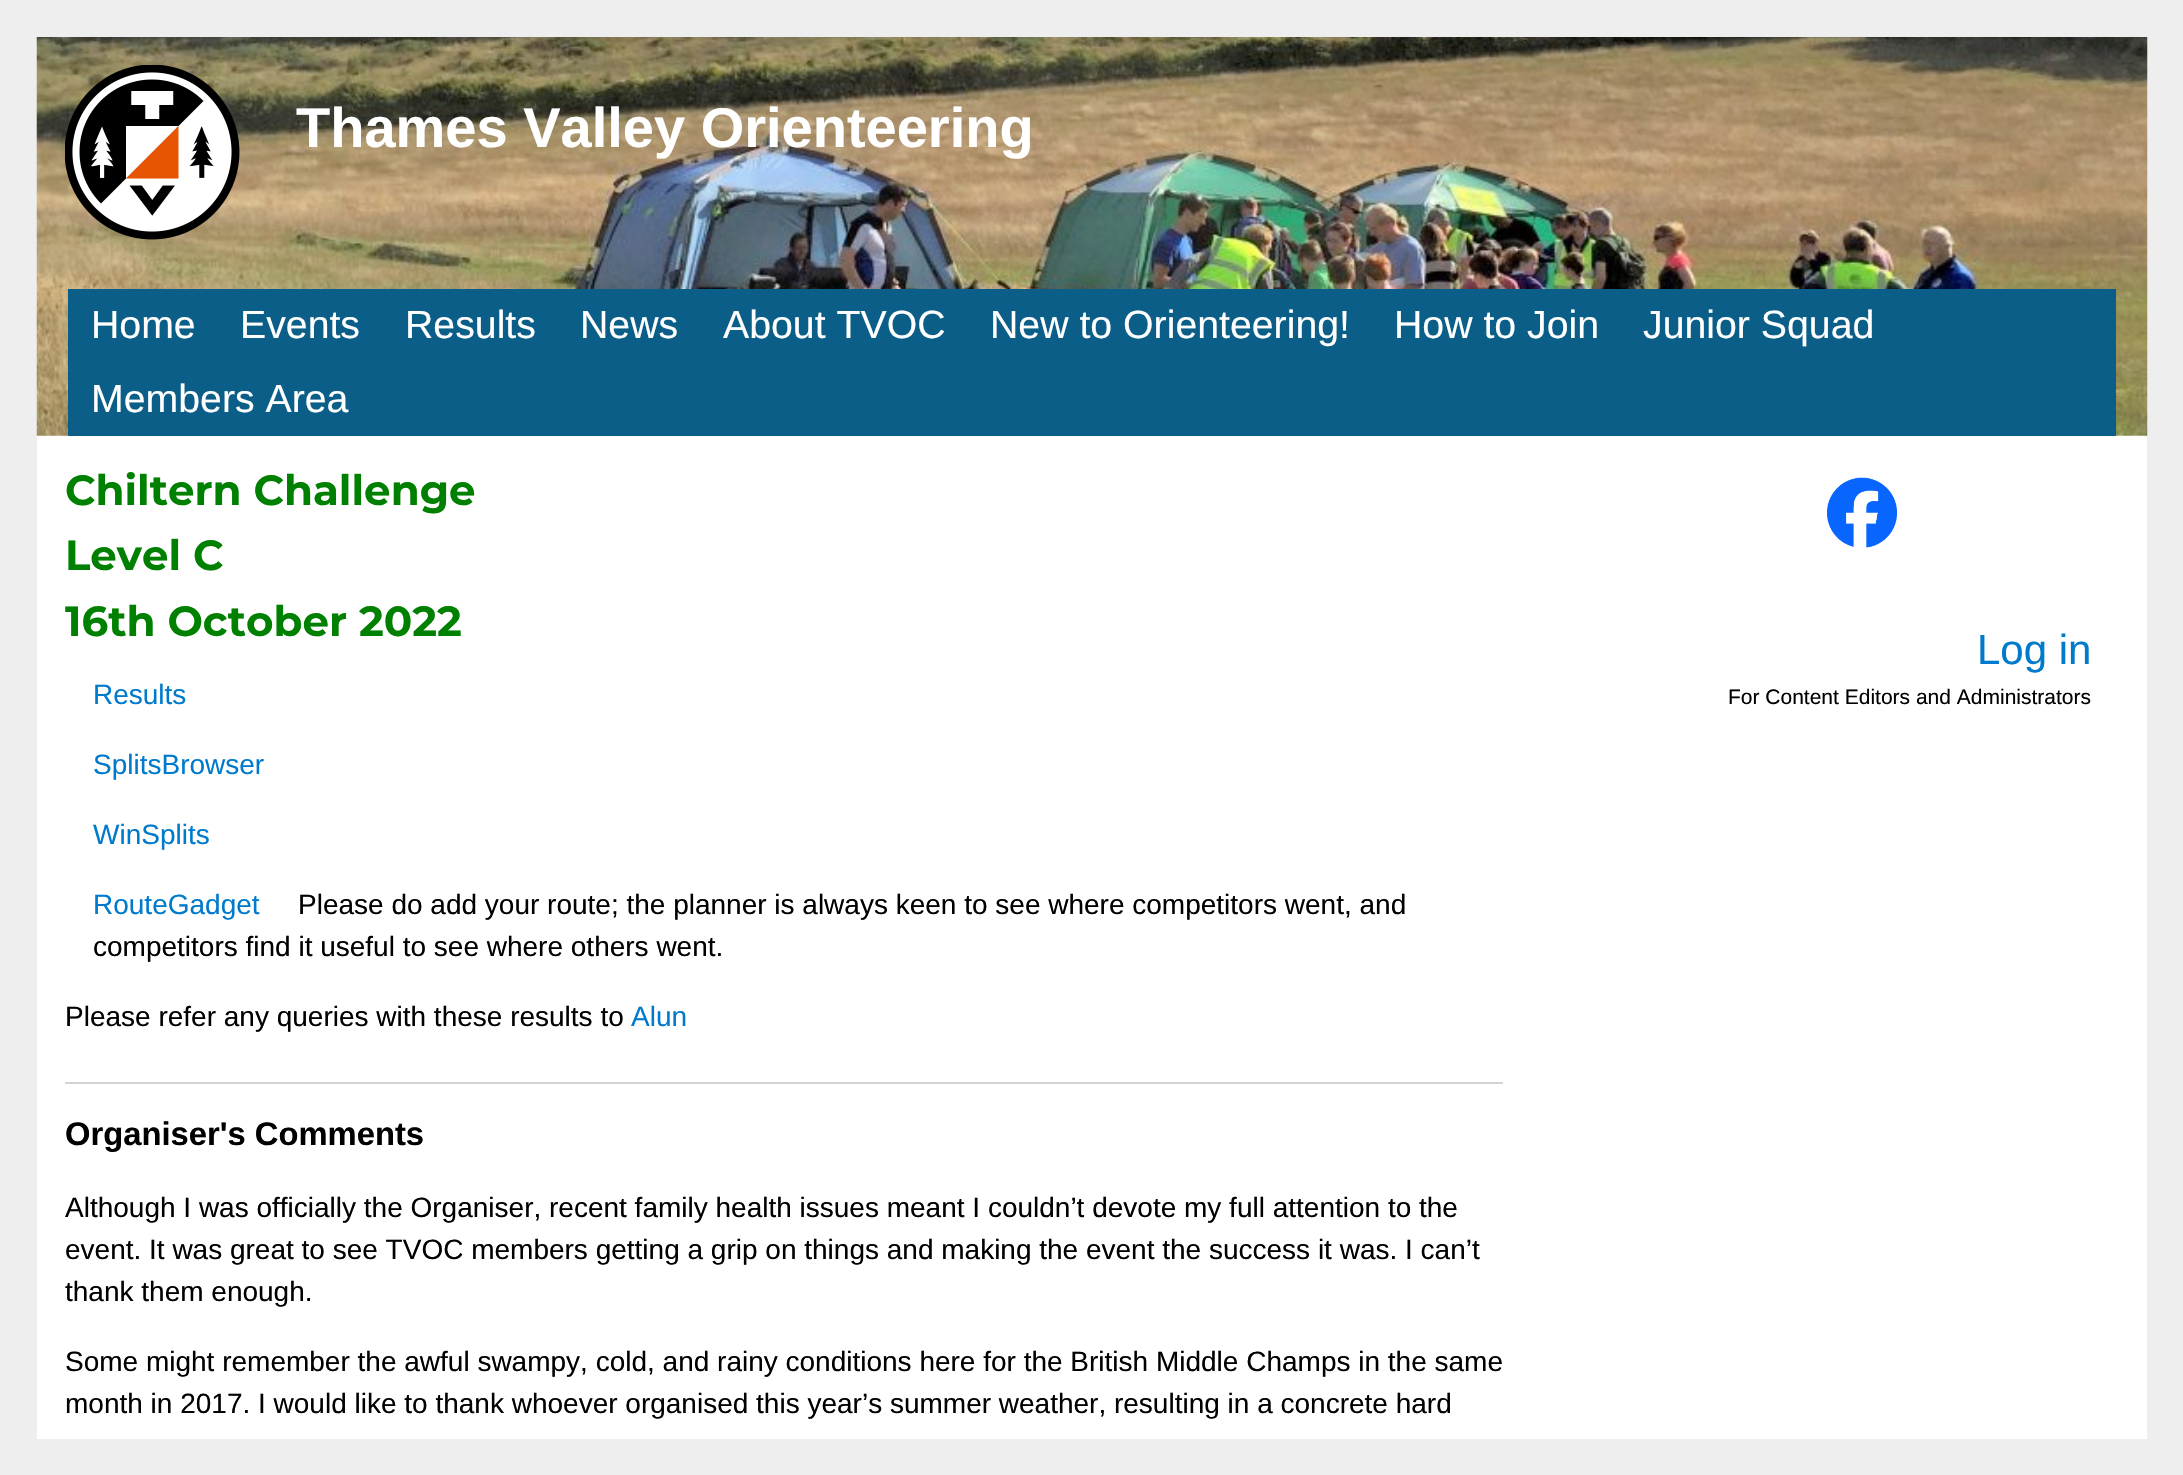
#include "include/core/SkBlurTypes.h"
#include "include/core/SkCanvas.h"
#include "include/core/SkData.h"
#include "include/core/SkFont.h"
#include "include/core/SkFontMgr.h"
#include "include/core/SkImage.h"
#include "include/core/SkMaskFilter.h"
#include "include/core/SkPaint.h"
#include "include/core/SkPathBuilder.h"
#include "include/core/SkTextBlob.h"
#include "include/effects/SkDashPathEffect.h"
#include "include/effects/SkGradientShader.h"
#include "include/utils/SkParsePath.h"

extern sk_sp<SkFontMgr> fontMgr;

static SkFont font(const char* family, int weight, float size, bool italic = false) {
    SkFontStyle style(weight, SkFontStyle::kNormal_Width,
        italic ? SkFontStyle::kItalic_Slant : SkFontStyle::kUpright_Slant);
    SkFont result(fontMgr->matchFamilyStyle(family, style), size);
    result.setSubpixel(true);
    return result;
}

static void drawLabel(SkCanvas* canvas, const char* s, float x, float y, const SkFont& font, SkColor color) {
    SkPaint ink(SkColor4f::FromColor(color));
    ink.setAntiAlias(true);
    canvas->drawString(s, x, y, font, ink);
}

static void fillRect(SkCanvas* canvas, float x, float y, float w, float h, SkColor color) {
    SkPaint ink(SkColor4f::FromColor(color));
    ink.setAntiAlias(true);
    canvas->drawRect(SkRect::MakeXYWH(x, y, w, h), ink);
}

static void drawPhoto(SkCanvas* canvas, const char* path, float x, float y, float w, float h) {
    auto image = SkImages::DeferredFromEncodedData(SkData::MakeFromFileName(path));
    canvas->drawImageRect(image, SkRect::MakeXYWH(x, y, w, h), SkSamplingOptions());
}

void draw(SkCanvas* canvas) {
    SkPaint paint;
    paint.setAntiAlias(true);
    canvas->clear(0xFFEEEEEE);
    fillRect(canvas, 37, 435, 2110, 1004, 0xFFFFFFFF);
    drawPhoto(canvas, "assets/img1.png", 36, 37, 2112, 399);
    drawPhoto(canvas, "assets/img2.png", 65, 65, 175, 175);
    SkFont font1 = font("Liberation Sans", 700, 56);
    drawLabel(canvas, "Thames Valley Orienteering", 296, 147, font1, 0xFFFFFFFF);
    fillRect(canvas, 68, 289, 2048, 147, 0xFF0A5E87);
    SkFont font2 = font("Liberation Sans", 400, 39.25f);
    drawLabel(canvas, "Home", 91, 338, font2, 0xFFFFFFFF);
    drawLabel(canvas, "Events", 240, 338, font2, 0xFFFFFFFF);
    drawLabel(canvas, "Results", 405, 338, font2, 0xFFFFFFFF);
    drawLabel(canvas, "News", 580, 338, font2, 0xFFFFFFFF);
    drawLabel(canvas, "About TVOC", 723, 338, font2, 0xFFFFFFFF);
    drawLabel(canvas, "New to Orienteering!", 990, 338, font2, 0xFFFFFFFF);
    drawLabel(canvas, "How to Join", 1394, 338, font2, 0xFFFFFFFF);
    drawLabel(canvas, "Junior Squad", 1643, 338, font2, 0xFFFFFFFF);
    drawLabel(canvas, "Members Area", 91, 412, font2, 0xFFFFFFFF);
    SkFont font3 = font("Montserrat", 700, 42);
    drawLabel(canvas, "Chiltern Challenge", 65, 505, font3, 0xFF008000);
    drawLabel(canvas, "Level C", 65, 570, font3, 0xFF008000);
    drawLabel(canvas, "16th October 2022", 65, 636, font3, 0xFF008000);
    SkFont font4 = font("Liberation Sans", 400, 28);
    drawLabel(canvas, "Results", 93, 704, font4, 0xFF007ACC);
    drawLabel(canvas, "SplitsBrowser", 93, 774, font4, 0xFF007ACC);
    drawLabel(canvas, "WinSplits", 93, 844, font4, 0xFF007ACC);
    drawLabel(canvas, "RouteGadget", 93, 914, font4, 0xFF007ACC);
    drawLabel(canvas, "Please do add your route; the planner is always keen to see where competitors went, and", 298, 914, font4, 0xFF000000);
    drawLabel(canvas, "competitors find it useful to see where others went.", 93, 956, font4, 0xFF000000);
    drawLabel(canvas, "Please refer any queries with these results to", 65, 1026, font4, 0xFF000000);
    drawLabel(canvas, "Alun", 631, 1026, font4, 0xFF007ACC);
    fillRect(canvas, 65, 1082, 1438, 2, 0xFFD3D3D3);
    SkFont font5 = font("Liberation Sans", 700, 32.75f);
    drawLabel(canvas, "Organiser's Comments", 65, 1145, font5, 0xFF000000);
    drawLabel(canvas, "Although I was officially the Organiser, recent family health issues meant I couldn’t devote my full attention to the", 65, 1217, font4, 0xFF000000);
    drawLabel(canvas, "event. It was great to see TVOC members getting a grip on things and making the event the success it was. I can’t", 65, 1259, font4, 0xFF000000);
    drawLabel(canvas, "thank them enough.", 65, 1301, font4, 0xFF000000);
    drawLabel(canvas, "Some might remember the awful swampy, cold, and rainy conditions here for the British Middle Champs in the same", 65, 1371, font4, 0xFF000000);
    drawLabel(canvas, "month in 2017. I would like to thank whoever organised this year’s summer weather, resulting in a concrete hard", 65, 1413, font4, 0xFF000000);
    drawPhoto(canvas, "assets/img3.png", 1827, 477, 70, 71);
    SkFont font6 = font("Liberation Sans", 400, 42);
    drawLabel(canvas, "Log in", 1977, 664, font6, 0xFF007ACC);
    SkFont font7 = font("Liberation Sans", 400, 21);
    drawLabel(canvas, "For Content Editors and Administrators", 1728, 704, font7, 0xFF000000);
}
